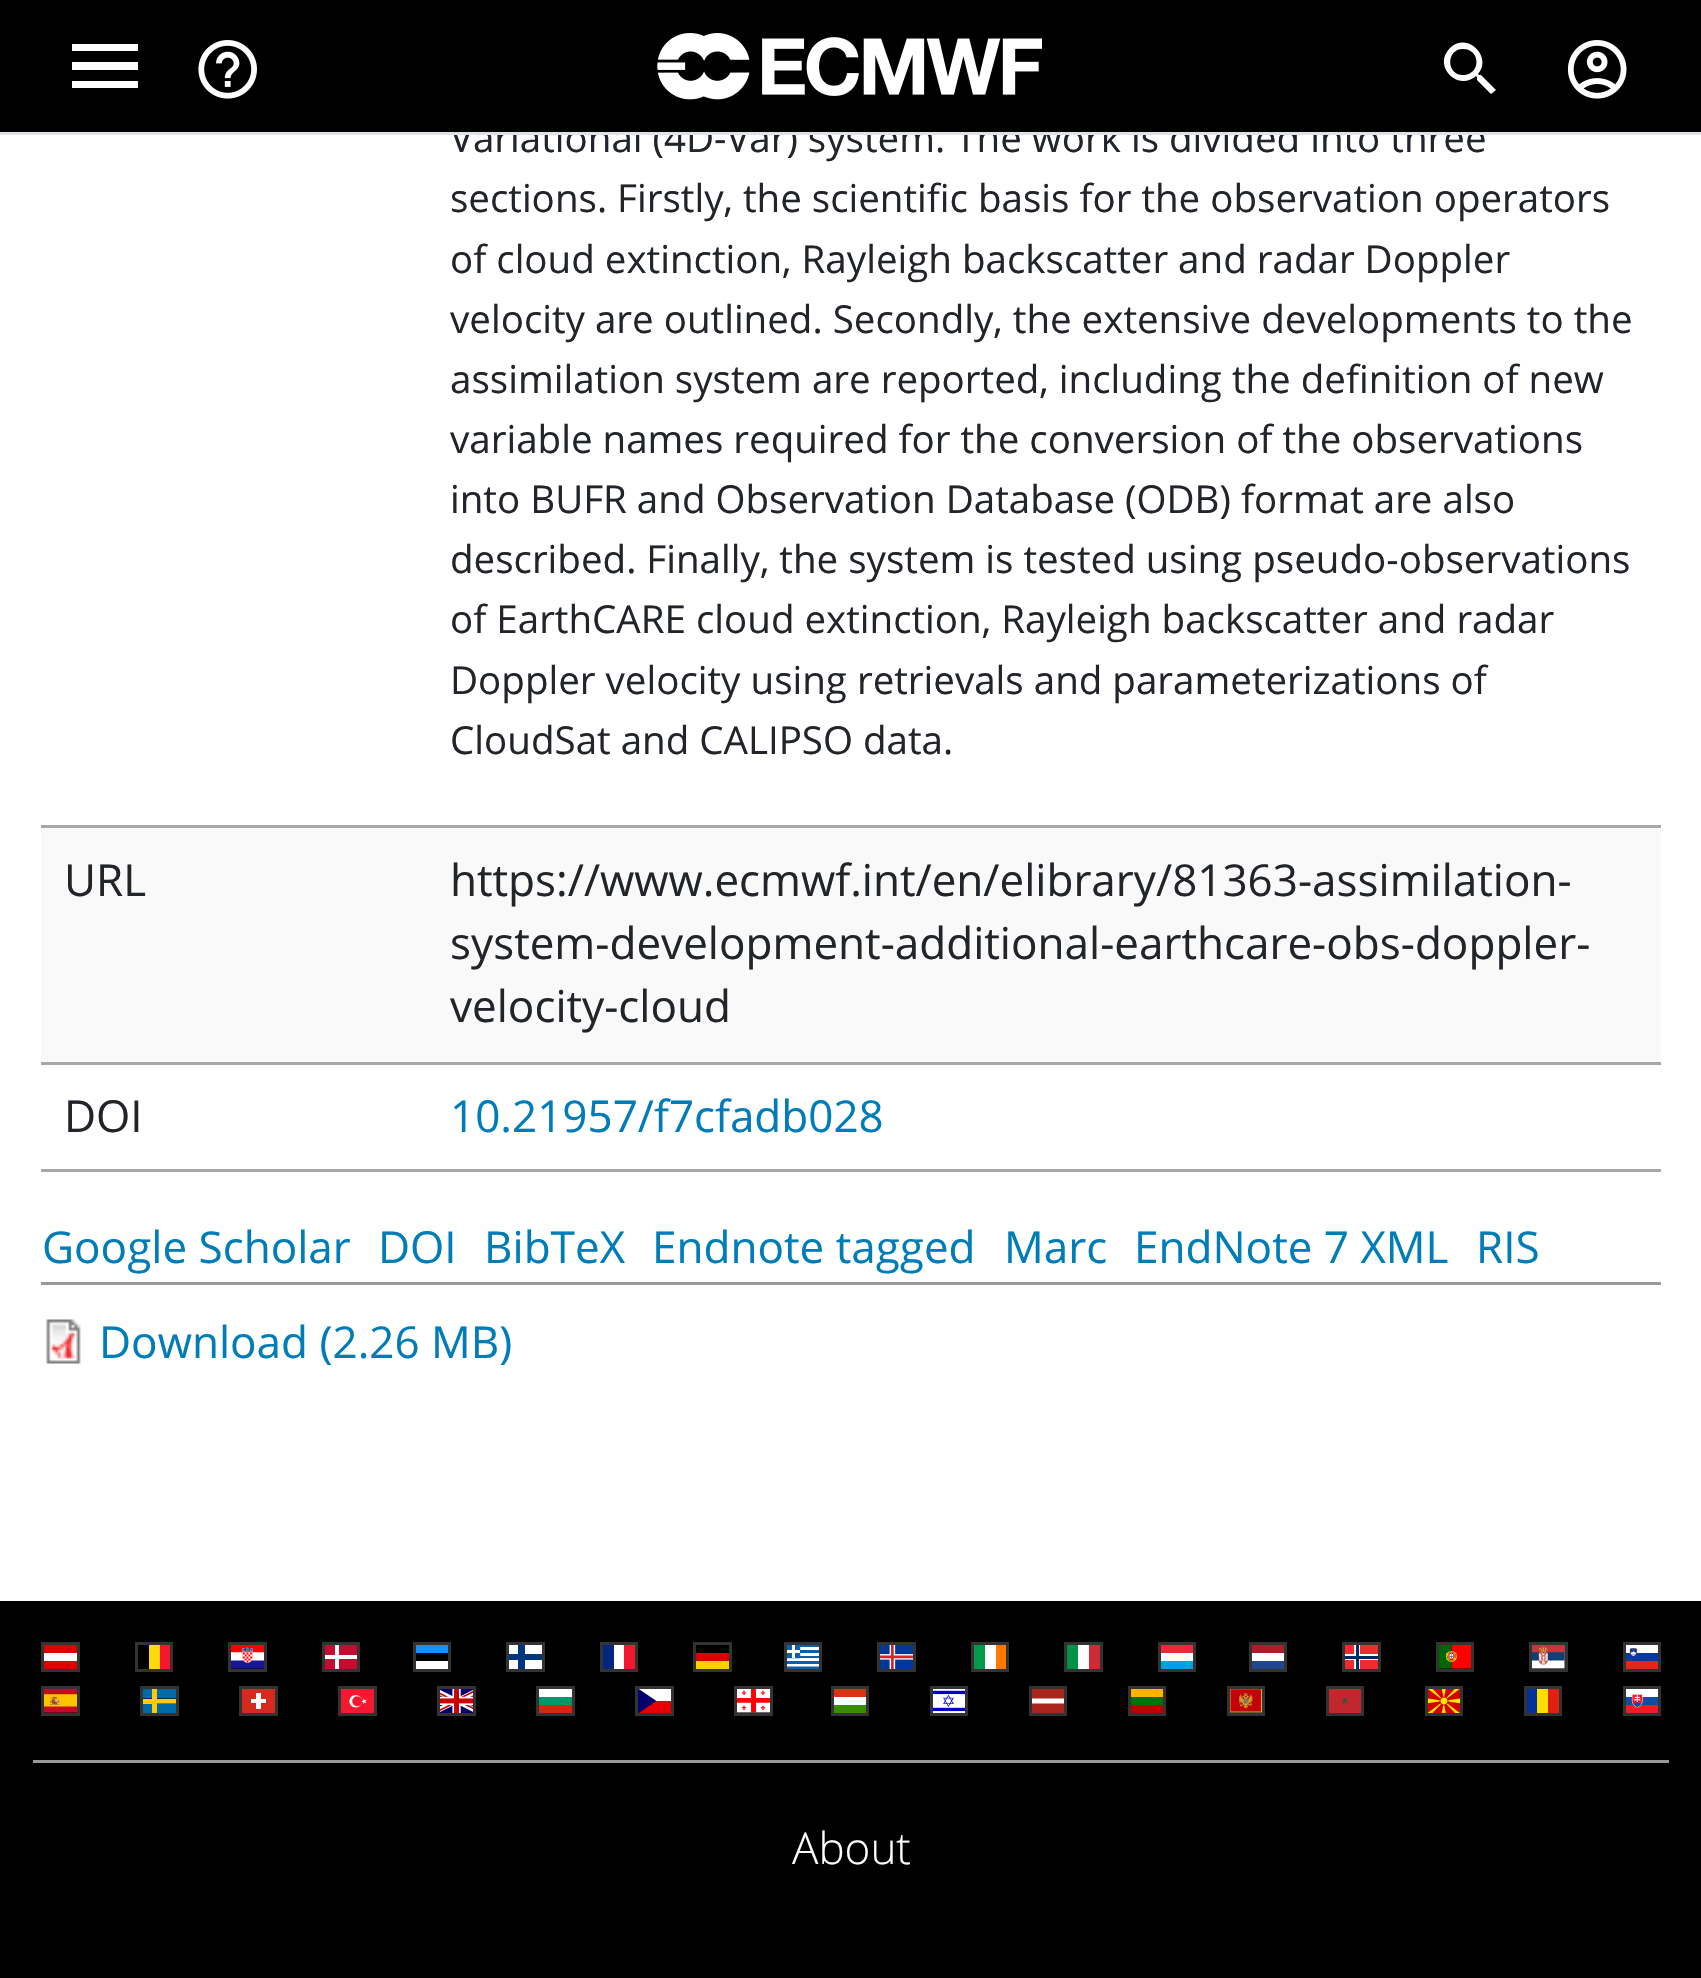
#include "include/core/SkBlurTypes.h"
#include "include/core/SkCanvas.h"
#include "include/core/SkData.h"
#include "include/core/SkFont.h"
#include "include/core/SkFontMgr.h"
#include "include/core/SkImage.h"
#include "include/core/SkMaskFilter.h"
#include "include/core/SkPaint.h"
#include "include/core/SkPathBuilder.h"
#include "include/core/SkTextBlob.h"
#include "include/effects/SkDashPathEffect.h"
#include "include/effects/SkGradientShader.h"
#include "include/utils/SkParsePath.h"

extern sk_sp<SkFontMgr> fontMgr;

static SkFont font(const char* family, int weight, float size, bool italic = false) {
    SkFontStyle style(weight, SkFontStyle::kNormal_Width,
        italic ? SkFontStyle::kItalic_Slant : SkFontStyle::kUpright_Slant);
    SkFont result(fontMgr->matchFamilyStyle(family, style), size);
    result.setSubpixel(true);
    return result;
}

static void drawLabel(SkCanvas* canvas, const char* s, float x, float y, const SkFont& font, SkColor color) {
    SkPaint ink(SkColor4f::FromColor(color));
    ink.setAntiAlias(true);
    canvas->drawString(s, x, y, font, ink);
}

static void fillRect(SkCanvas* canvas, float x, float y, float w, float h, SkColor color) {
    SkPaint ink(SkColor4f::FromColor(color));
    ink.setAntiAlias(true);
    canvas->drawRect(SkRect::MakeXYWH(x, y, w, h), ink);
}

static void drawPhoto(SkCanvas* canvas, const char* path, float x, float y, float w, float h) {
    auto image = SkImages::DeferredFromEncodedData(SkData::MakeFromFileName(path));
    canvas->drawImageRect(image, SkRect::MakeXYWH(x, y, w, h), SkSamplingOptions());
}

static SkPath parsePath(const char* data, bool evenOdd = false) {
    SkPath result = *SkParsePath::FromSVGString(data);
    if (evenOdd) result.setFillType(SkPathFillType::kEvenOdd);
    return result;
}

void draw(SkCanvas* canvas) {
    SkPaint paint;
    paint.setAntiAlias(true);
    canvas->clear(0xFFFFFFFF);
    SkFont font1 = font("Open Sans", 400, 38.5f);
    drawLabel(canvas, "Variational (4D-Var) system. The work is divided into three", 450, 152, font1, 0xFF212529);
    fillRect(canvas, 0, 0, 1701, 132, 0xFF000000);
    fillRect(canvas, 0, 132, 1701, 3, 0xFFDEE2E6);
    paint.setColor(0xFFFFFFFF);
    canvas->drawPath(parsePath("M72 88H138V81H72ZM72 70H138V62H72ZM72 44V51H138V44Z"), paint);
    drawPhoto(canvas, "assets/img1.png", 198, 40, 59, 59);
    drawPhoto(canvas, "assets/img2.png", 657, 33, 385, 67);
    canvas->drawPath(parsePath("M1481 75H1479L1478 74C1493 57 1467 31 1450 48C1432 66 1458 92 1476 76L1477 77V80L1491 94L1496 90ZM1463 75C1446 75 1446 49 1463 49C1481 49 1481 75 1463 75Z"), paint);
    drawPhoto(canvas, "assets/img3.png", 1567, 40, 60, 59);
    drawLabel(canvas, "sections. Firstly, the scientific basis for the observation operators", 450, 212, font1, 0xFF212529);
    drawLabel(canvas, "of cloud extinction, Rayleigh backscatter and radar Doppler", 450, 273, font1, 0xFF212529);
    drawLabel(canvas, "velocity are outlined. Secondly, the extensive developments to the", 450, 333, font1, 0xFF212529);
    drawLabel(canvas, "assimilation system are reported, including the definition of new", 450, 393, font1, 0xFF212529);
    drawLabel(canvas, "variable names required for the conversion of the observations", 450, 453, font1, 0xFF212529);
    drawLabel(canvas, "into BUFR and Observation Database (ODB) format are also", 450, 513, font1, 0xFF212529);
    drawLabel(canvas, "described. Finally, the system is tested using pseudo-observations", 450, 573, font1, 0xFF212529);
    drawLabel(canvas, "of EarthCARE cloud extinction, Rayleigh backscatter and radar", 450, 633, font1, 0xFF212529);
    drawLabel(canvas, "Doppler velocity using retrievals and parameterizations of", 450, 694, font1, 0xFF212529);
    drawLabel(canvas, "CloudSat and CALIPSO data.", 450, 754, font1, 0xFF212529);
    fillRect(canvas, 41, 828, 1620, 234, 0xFFF9F9F9);
    SkFont font2 = font("Open Sans", 400, 44);
    drawLabel(canvas, "URL", 64, 896, font2, 0xFF212529);
    fillRect(canvas, 41, 825, 1620, 3, 0xFFA7A7A7);
    drawLabel(canvas, "https://www.ecmwf.int/en/elibrary/81363-assimilation-", 450, 896, font2, 0xFF212529);
    drawLabel(canvas, "system-development-additional-earthcare-obs-doppler-", 450, 959, font2, 0xFF212529);
    drawLabel(canvas, "velocity-cloud", 450, 1022, font2, 0xFF212529);
    drawLabel(canvas, "DOI", 64, 1132, font2, 0xFF212529);
    fillRect(canvas, 41, 1062, 1620, 3, 0xFFA7A7A7);
    fillRect(canvas, 41, 1169, 1620, 3, 0xFFA7A7A7);
    drawLabel(canvas, "10.21957/f7cfadb028", 450, 1132, font2, 0xFF007DB8);
    drawLabel(canvas, "Google Scholar", 42, 1263, font2, 0xFF007DB8);
    drawLabel(canvas, "DOI", 378, 1263, font2, 0xFF007DB8);
    drawLabel(canvas, "BibTeX", 484, 1263, font2, 0xFF007DB8);
    drawLabel(canvas, "Endnote tagged", 652, 1263, font2, 0xFF007DB8);
    drawLabel(canvas, "Marc", 1004, 1263, font2, 0xFF007DB8);
    drawLabel(canvas, "EndNote 7 XML", 1134, 1263, font2, 0xFF007DB8);
    drawLabel(canvas, "RIS", 1476, 1263, font2, 0xFF007DB8);
    fillRect(canvas, 41, 1282, 1620, 3, 0xFF999999);
    drawPhoto(canvas, "assets/img4.png", 46, 1319, 35, 45);
    drawLabel(canvas, "Download (2.26 MB)", 99, 1358, font2, 0xFF007DB8);
    fillRect(canvas, 0, 1601, 1701, 377, 0xFF000000);
    fillRect(canvas, 44, 1653, 33, 8, 0xFFFFFFFF);
    paint.setColor(0xFFDF0000);
    canvas->drawPath(parsePath("M77 1669H44V1661H77ZM77 1653H44V1644.5H77Z", true), paint);
    paint.setStroke(true);
    paint.setStrokeWidth(3);
    paint.setColor(0xFF333333);
    canvas->drawRect(SkRect::MakeXYWH(42.5f, 1643.5f, 36, 27), paint);
    fillRect(canvas, 149, 1645, 11, 24, 0xFFFFD90C);
    fillRect(canvas, 160, 1645, 10, 24, 0xFFF31830);
    canvas->drawRect(SkRect::MakeXYWH(136.5f, 1643.5f, 35, 27), paint);
    drawPhoto(canvas, "assets/img5.png", 231, 1645, 33, 24);
    canvas->drawRect(SkRect::MakeXYWH(229.5f, 1643.5f, 36, 27), paint);
    fillRect(canvas, 325, 1645, 32, 24, 0xFFC60C30);
    fillRect(canvas, 335, 1645, 4, 24, 0xFFFFFFFF);
    fillRect(canvas, 325, 1655, 33, 4, 0xFFFFFFFF);
    canvas->drawRect(SkRect::MakeXYWH(323.5f, 1643.5f, 35, 27), paint);
    fillRect(canvas, 415, 1661, 33, 8, 0xFFFFFFFF);
    fillRect(canvas, 415, 1645, 33, 8, 0xFF1291FF);
    canvas->drawRect(SkRect::MakeXYWH(414.5f, 1643.5f, 35, 27), paint);
    fillRect(canvas, 509, 1645, 33, 24, 0xFFFFFFFF);
    fillRect(canvas, 509, 1654, 33, 6, 0xFF003580);
    fillRect(canvas, 518, 1645, 7, 24, 0xFF003580);
    canvas->drawRect(SkRect::MakeXYWH(507.5f, 1643.5f, 36, 27), paint);
    fillRect(canvas, 614, 1645, 10, 24, 0xFFFFFFFF);
    fillRect(canvas, 603, 1645, 11, 24, 0xFF00267F);
    fillRect(canvas, 624, 1645, 11, 24, 0xFFF31830);
    canvas->drawRect(SkRect::MakeXYWH(601.5f, 1643.5f, 35, 27), paint);
    fillRect(canvas, 696, 1661, 33, 8, 0xFFFFCE00);
    fillRect(canvas, 696, 1653, 33, 8, 0xFFDD0000);
    canvas->drawRect(SkRect::MakeXYWH(694.5f, 1643.5f, 36, 27), paint);
    drawPhoto(canvas, "assets/img6.png", 787, 1645, 32, 24);
    canvas->drawRect(SkRect::MakeXYWH(785.5f, 1643.5f, 35, 27), paint);
    drawPhoto(canvas, "assets/img7.png", 880, 1645, 33, 24);
    canvas->drawRect(SkRect::MakeXYWH(878.5f, 1643.5f, 36, 27), paint);
    fillRect(canvas, 985, 1645, 11, 24, 0xFFFFFFFF);
    fillRect(canvas, 974, 1645, 11, 24, 0xFF009A49);
    fillRect(canvas, 996, 1645, 10, 24, 0xFFFF7900);
    canvas->drawRect(SkRect::MakeXYWH(972.5f, 1643.5f, 35, 27), paint);
    fillRect(canvas, 1078, 1645, 11, 24, 0xFFFFFFFF);
    fillRect(canvas, 1067, 1645, 11, 24, 0xFF009246);
    fillRect(canvas, 1089, 1645, 11, 24, 0xFFCE2B37);
    canvas->drawRect(SkRect::MakeXYWH(1065.5f, 1643.5f, 36, 27), paint);
    fillRect(canvas, 1161, 1661, 32, 8, 0xFF00A1DE);
    fillRect(canvas, 1161, 1645, 32, 8, 0xFFED2939);
    fillRect(canvas, 1161, 1653, 33, 8, 0xFFFFFFFF);
    canvas->drawRect(SkRect::MakeXYWH(1159.5f, 1643.5f, 35, 27), paint);
    fillRect(canvas, 1252, 1653, 32, 8, 0xFFFFFFFF);
    fillRect(canvas, 1251, 1661, 33, 8, 0xFF21468B);
    fillRect(canvas, 1251, 1645, 33, 8, 0xFFAE1C28);
    canvas->drawRect(SkRect::MakeXYWH(1250.5f, 1643.5f, 35, 27), paint);
    fillRect(canvas, 1345, 1645, 33, 24, 0xFFEF2B2D);
    fillRect(canvas, 1354, 1645, 6, 24, 0xFFFFFFFF);
    fillRect(canvas, 1345, 1654, 33, 6, 0xFFFFFFFF);
    fillRect(canvas, 1356, 1645, 3, 24, 0xFF002868);
    fillRect(canvas, 1345, 1656, 33, 3, 0xFF002868);
    canvas->drawRect(SkRect::MakeXYWH(1343.5f, 1643.5f, 36, 27), paint);
    drawPhoto(canvas, "assets/img8.png", 1439, 1645, 32, 24);
    canvas->drawRect(SkRect::MakeXYWH(1437.5f, 1643.5f, 35, 27), paint);
    drawPhoto(canvas, "assets/img9.png", 1532, 1645, 33, 24);
    canvas->drawRect(SkRect::MakeXYWH(1530.5f, 1643.5f, 36, 27), paint);
    drawPhoto(canvas, "assets/img10.png", 1626, 1645, 32, 24);
    canvas->drawRect(SkRect::MakeXYWH(1624.5f, 1643.5f, 35, 27), paint);
    drawPhoto(canvas, "assets/img11.png", 44, 1689, 33, 24);
    canvas->drawRect(SkRect::MakeXYWH(42.5f, 1687.5f, 36, 27), paint);
    drawPhoto(canvas, "assets/img12.png", 143, 1689, 33, 24);
    canvas->drawRect(SkRect::MakeXYWH(141.5f, 1687.5f, 36, 27), paint);
    fillRect(canvas, 242, 1689, 33, 24, 0xFFD52B1E);
    fillRect(canvas, 251, 1699, 15, 4, 0xFFFFFFFF);
    fillRect(canvas, 256, 1693, 5, 16, 0xFFFFFFFF);
    canvas->drawRect(SkRect::MakeXYWH(240.5f, 1687.5f, 36, 27), paint);
    drawPhoto(canvas, "assets/img13.png", 341, 1689, 33, 24);
    canvas->drawRect(SkRect::MakeXYWH(339.5f, 1687.5f, 36, 27), paint);
    drawPhoto(canvas, "assets/img14.png", 440, 1689, 33, 24);
    canvas->drawRect(SkRect::MakeXYWH(438.5f, 1687.5f, 36, 27), paint);
    fillRect(canvas, 539, 1705, 33, 8, 0xFFD62612);
    fillRect(canvas, 539, 1689, 33, 8, 0xFFFFFFFF);
    fillRect(canvas, 539, 1697, 33, 8, 0xFF00966E);
    canvas->drawRect(SkRect::MakeXYWH(537.5f, 1687.5f, 36, 27), paint);
    fillRect(canvas, 638, 1701, 33, 12, 0xFFE80000);
    fillRect(canvas, 638, 1689, 33, 12, 0xFFFFFFFF);
    paint.setStroke(false);
    paint.setColor(0xFF00006F);
    canvas->drawPath(parsePath("M638 1688.5L656.5 1701L638 1713.5Z", true), paint);
    paint.setStroke(true);
    paint.setColor(0xFF333333);
    canvas->drawRect(SkRect::MakeXYWH(636.5f, 1687.5f, 36, 27), paint);
    drawPhoto(canvas, "assets/img15.png", 737, 1689, 33, 24);
    canvas->drawRect(SkRect::MakeXYWH(735.5f, 1687.5f, 36, 27), paint);
    fillRect(canvas, 834, 1697, 32, 8, 0xFFFFFFFF);
    fillRect(canvas, 833, 1705, 33, 8, 0xFF388D00);
    fillRect(canvas, 833, 1689, 33, 8, 0xFFD43516);
    canvas->drawRect(SkRect::MakeXYWH(832.5f, 1687.5f, 35, 27), paint);
    drawPhoto(canvas, "assets/img16.png", 933, 1689, 32, 24);
    canvas->drawRect(SkRect::MakeXYWH(931.5f, 1687.5f, 35, 27), paint);
    fillRect(canvas, 1032, 1698, 32, 6, 0xFFFFFFFF);
    paint.setStroke(false);
    paint.setColor(0xFFAB231D);
    canvas->drawPath(parsePath("M1031 1688.5H1064V1698.5H1031ZM1031 1703.5H1064V1713.5H1031Z", true), paint);
    paint.setStroke(true);
    paint.setColor(0xFF333333);
    canvas->drawRect(SkRect::MakeXYWH(1030.5f, 1687.5f, 35, 27), paint);
    fillRect(canvas, 1131, 1697, 32, 8, 0xFF007308);
    fillRect(canvas, 1130, 1705, 33, 8, 0xFFBF0000);
    fillRect(canvas, 1130, 1689, 33, 8, 0xFFFFB300);
    canvas->drawRect(SkRect::MakeXYWH(1129.5f, 1687.5f, 35, 27), paint);
    drawPhoto(canvas, "assets/img17.png", 1230, 1689, 32, 24);
    canvas->drawRect(SkRect::MakeXYWH(1228.5f, 1687.5f, 35, 27), paint);
    fillRect(canvas, 1329, 1689, 32, 24, 0xFFC1272D);
    paint.setStrokeWidth(0.6f);
    paint.setColor(0xFF006233);
    canvas->drawPath(parsePath("M1345 1698L1343 1703.5L1347.5 1700H1342L1346.5 1703.5Z"), paint);
    paint.setStrokeWidth(3);
    paint.setColor(0xFF333333);
    canvas->drawRect(SkRect::MakeXYWH(1327.5f, 1687.5f, 35, 27), paint);
    drawPhoto(canvas, "assets/img18.png", 1428, 1689, 32, 24);
    canvas->drawRect(SkRect::MakeXYWH(1426.5f, 1687.5f, 35, 27), paint);
    fillRect(canvas, 1527, 1689, 10, 24, 0xFF00319C);
    fillRect(canvas, 1537, 1689, 11, 24, 0xFFFFDE00);
    fillRect(canvas, 1548, 1689, 11, 24, 0xFFDE2110);
    canvas->drawRect(SkRect::MakeXYWH(1525.5f, 1687.5f, 35, 27), paint);
    drawPhoto(canvas, "assets/img19.png", 1626, 1689, 32, 24);
    canvas->drawRect(SkRect::MakeXYWH(1624.5f, 1687.5f, 35, 27), paint);
    fillRect(canvas, 33, 1760, 1636, 3, 0xFF999999);
    SkFont font3 = font("Open Sans", 300, 44);
    drawLabel(canvas, "About", 792, 1864, font3, 0xFFFFFFFF);
}
